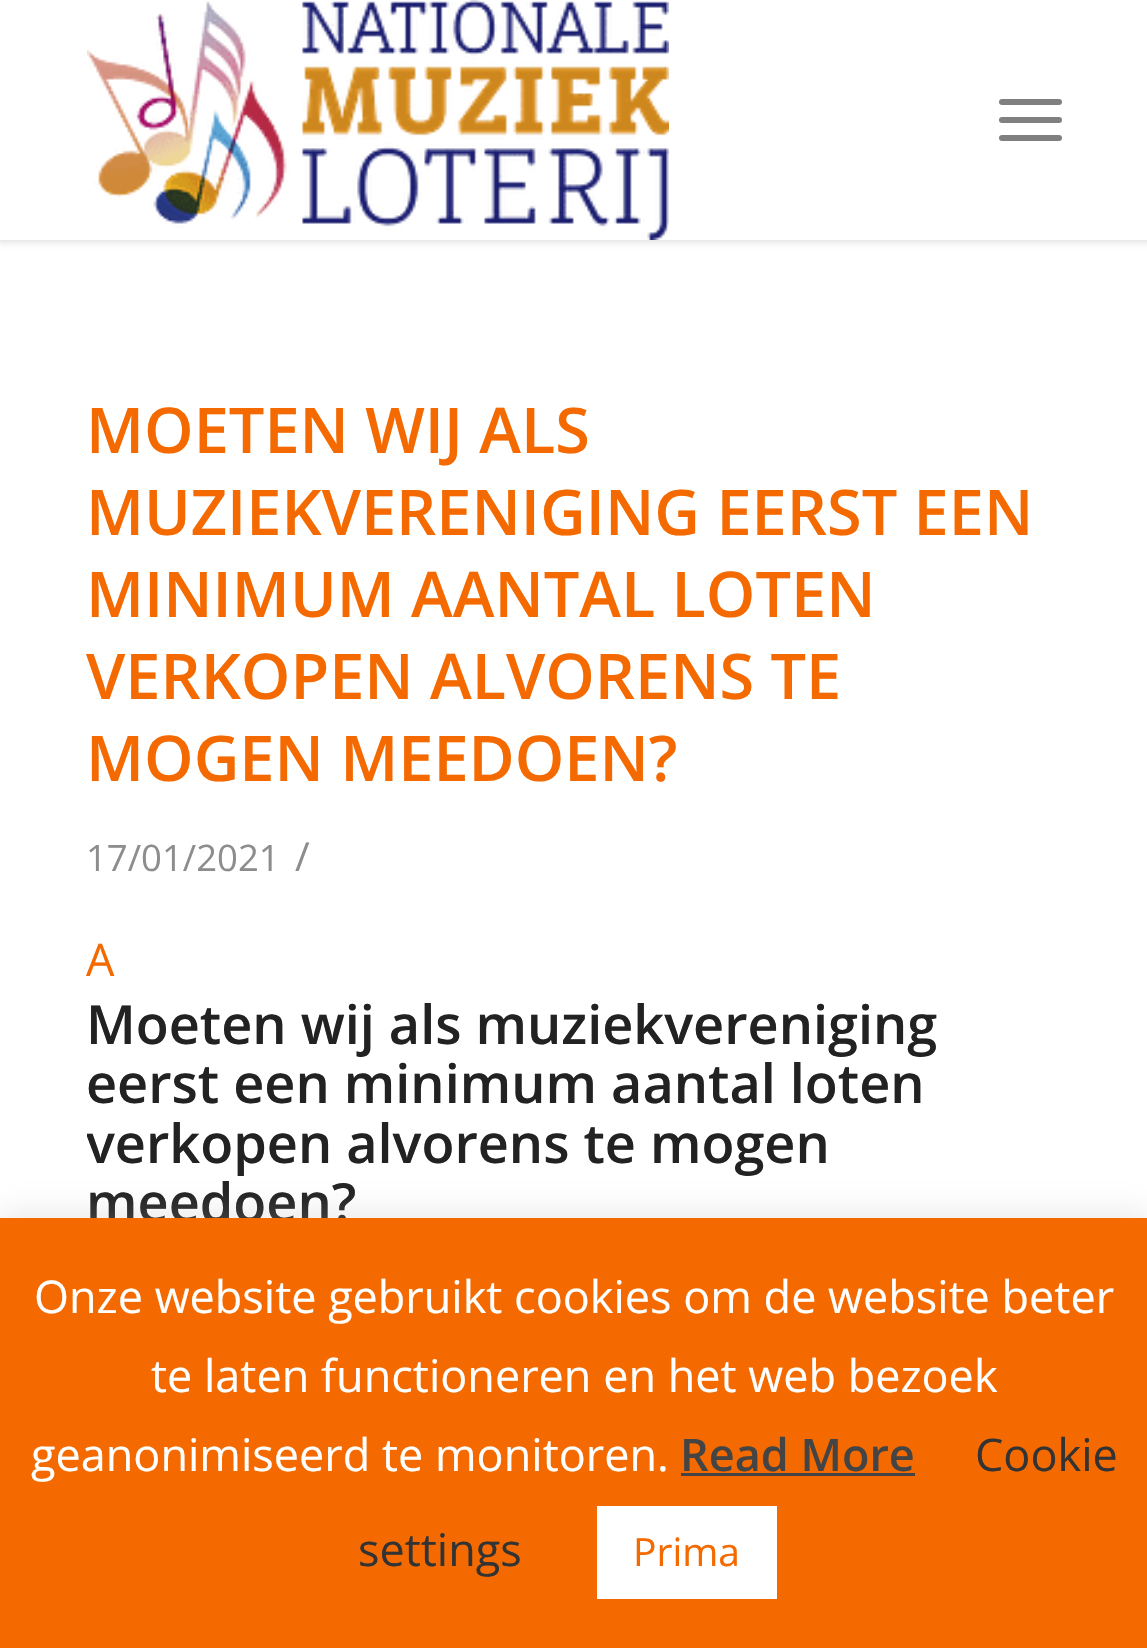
#include "include/core/SkBlurTypes.h"
#include "include/core/SkCanvas.h"
#include "include/core/SkData.h"
#include "include/core/SkFont.h"
#include "include/core/SkFontMgr.h"
#include "include/core/SkImage.h"
#include "include/core/SkMaskFilter.h"
#include "include/core/SkPaint.h"
#include "include/core/SkPathBuilder.h"
#include "include/core/SkTextBlob.h"
#include "include/effects/SkDashPathEffect.h"
#include "include/effects/SkGradientShader.h"
#include "include/utils/SkParsePath.h"

extern sk_sp<SkFontMgr> fontMgr;

static SkFont font(const char* family, int weight, float size, bool italic = false) {
    SkFontStyle style(weight, SkFontStyle::kNormal_Width,
        italic ? SkFontStyle::kItalic_Slant : SkFontStyle::kUpright_Slant);
    SkFont result(fontMgr->matchFamilyStyle(family, style), size);
    result.setSubpixel(true);
    return result;
}

static void drawLabel(SkCanvas* canvas, const char* s, float x, float y, const SkFont& font, SkColor color) {
    SkPaint ink(SkColor4f::FromColor(color));
    ink.setAntiAlias(true);
    canvas->drawString(s, x, y, font, ink);
}

static void fillRect(SkCanvas* canvas, float x, float y, float w, float h, SkColor color) {
    SkPaint ink(SkColor4f::FromColor(color));
    ink.setAntiAlias(true);
    canvas->drawRect(SkRect::MakeXYWH(x, y, w, h), ink);
}

static void fillRRect(SkCanvas* canvas, float x, float y, float w, float h, float radius, SkColor color) {
    SkPaint ink(SkColor4f::FromColor(color));
    ink.setAntiAlias(true);
    canvas->drawRoundRect(SkRect::MakeXYWH(x, y, w, h), radius, radius, ink);
}

static void drawPhoto(SkCanvas* canvas, const char* path, float x, float y, float w, float h) {
    auto image = SkImages::DeferredFromEncodedData(SkData::MakeFromFileName(path));
    canvas->drawImageRect(image, SkRect::MakeXYWH(x, y, w, h), SkSamplingOptions());
}

void draw(SkCanvas* canvas) {
    SkPaint paint;
    paint.setAntiAlias(true);
    canvas->clear(0xFFFFFFFF);
    paint.setColor(0x1A000000);
    paint.setMaskFilter(SkMaskFilter::MakeBlur(kNormal_SkBlurStyle, 3));
    canvas->drawRect(SkRect::MakeXYWH(-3, -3, 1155, 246), paint);
    paint.setMaskFilter(nullptr);
    fillRect(canvas, 0, 0, 1147, 240, 0xFFFFFFFF);
    drawPhoto(canvas, "assets/img1.png", 87, 0, 582, 240);
    fillRRect(canvas, 999, 117, 63, 6, 3, 0xFF808080);
    fillRRect(canvas, 999, 99, 63, 6, 3, 0xFF808080);
    fillRRect(canvas, 999, 135, 63, 6, 3, 0xFF808080);
    SkFont font1 = font("Open Sans", 600, 63);
    drawLabel(canvas, "MOETEN WIJ ALS", 86, 453, font1, 0xFFF46A00);
    drawLabel(canvas, "MUZIEKVERENIGING EERST EEN", 86, 535, font1, 0xFFF46A00);
    drawLabel(canvas, "MINIMUM AANTAL LOTEN", 86, 617, font1, 0xFFF46A00);
    drawLabel(canvas, "VERKOPEN ALVORENS TE", 86, 699, font1, 0xFFF46A00);
    drawLabel(canvas, "MOGEN MEEDOEN?", 86, 781, font1, 0xFFF46A00);
    SkFont font2 = font("Open Sans", 400, 36.5f);
    drawLabel(canvas, "17/01/2021", 86, 871, font2, 0xFF8D8D8D);
    SkFont font3 = font("Open Sans", 400, 40);
    drawLabel(canvas, "/", 295, 871, font3, 0xFF8D8D8D);
    SkFont font4 = font("Open Sans", 400, 45);
    drawLabel(canvas, "A", 86, 976, font4, 0xFFF46A00);
    SkFont font5 = font("Open Sans", 600, 54);
    drawLabel(canvas, "Moeten wij als muziekvereniging", 86, 1044, font5, 0xFF222222);
    drawLabel(canvas, "eerst een minimum aantal loten", 86, 1103, font5, 0xFF222222);
    canvas->save();
    canvas->clipRect(SkRect::MakeXYWH(87, 390, 975, 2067));
    drawLabel(canvas, "verkopen alvorens te mogen", 86, 1163, font5, 0xFF222222);
    canvas->restore();
    drawLabel(canvas, "meedoen?", 86, 1222, font5, 0xFF222222);
    paint.setColor(0x4DACABAB);
    paint.setMaskFilter(SkMaskFilter::MakeBlur(kNormal_SkBlurStyle, 15));
    canvas->drawRect(SkRect::MakeXYWH(0, 1215, 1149, 432), paint);
    paint.setMaskFilter(nullptr);
    fillRect(canvas, 0, 1218, 1147, 430, 0xFFF46A00);
    drawLabel(canvas, "Onze website gebruikt cookies om de website beter", 34, 1313, font4, 0xFFFFFFFF);
    drawLabel(canvas, "te laten functioneren en het web bezoek", 151, 1392, font4, 0xFFFFFFFF);
    drawLabel(canvas, "geanonimiseerd te monitoren.", 31, 1471, font4, 0xFFFFFFFF);
    SkFont font6 = font("Open Sans", 600, 45);
    drawLabel(canvas, "Read More", 680, 1471, font6, 0xFF444444);
    fillRect(canvas, 681, 1473, 234, 3, 0xFF444444);
    drawLabel(canvas, "Cookie", 975, 1471, font4, 0xFF333333);
    drawLabel(canvas, "settings", 358, 1566, font4, 0xFF333333);
    fillRect(canvas, 597, 1506, 180, 93, 0xFFFFFFFF);
    SkFont font7 = font("Open Sans", 400, 39);
    drawLabel(canvas, "Prima", 633, 1566, font7, 0xFFF46A00);
}
